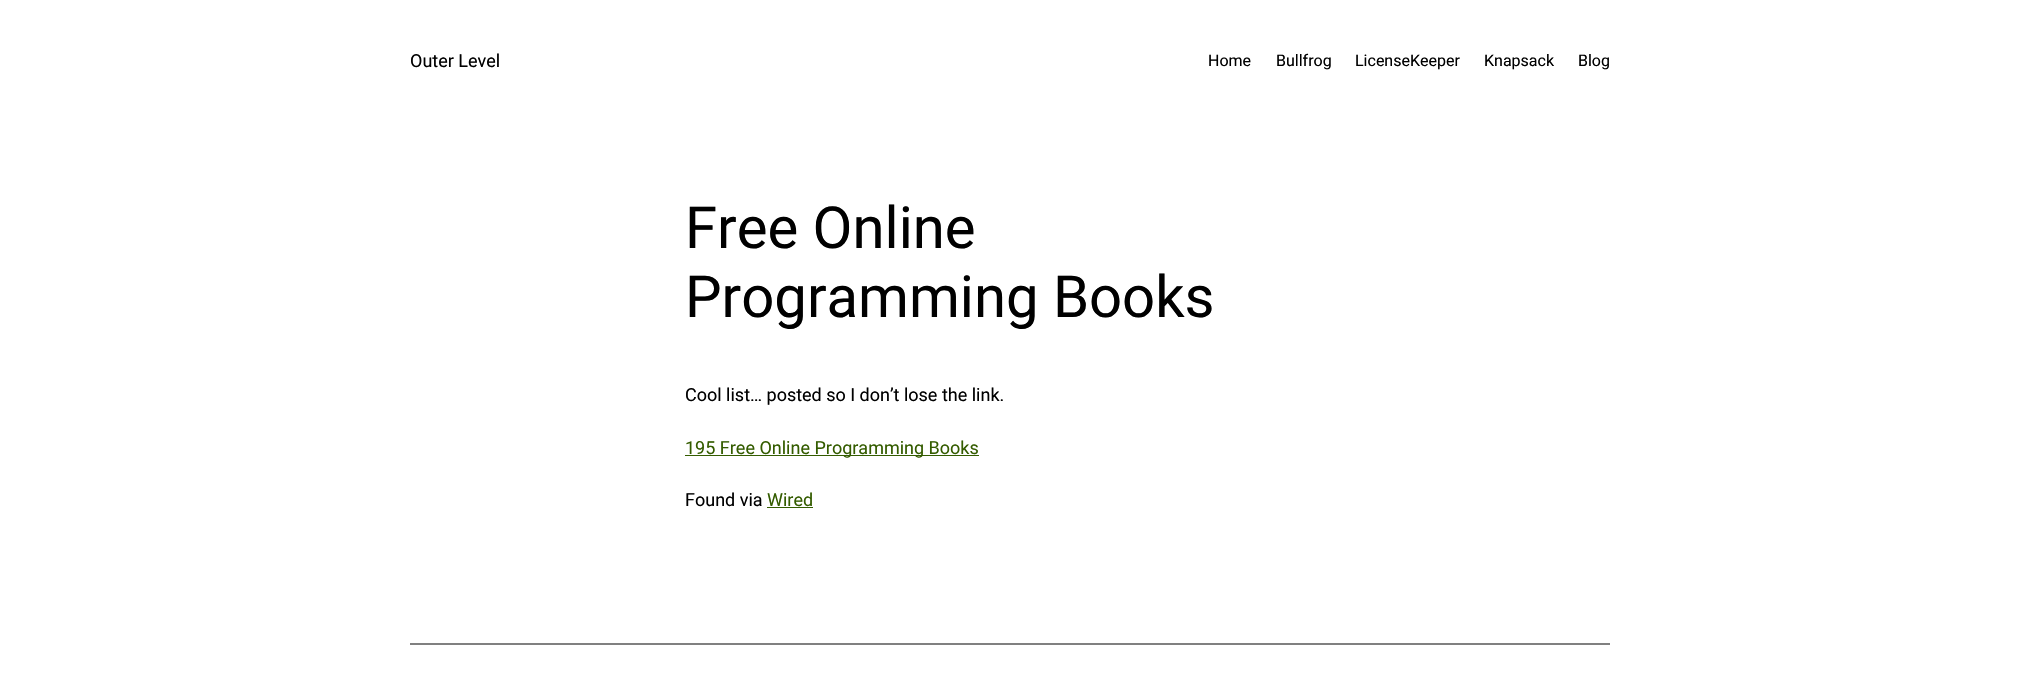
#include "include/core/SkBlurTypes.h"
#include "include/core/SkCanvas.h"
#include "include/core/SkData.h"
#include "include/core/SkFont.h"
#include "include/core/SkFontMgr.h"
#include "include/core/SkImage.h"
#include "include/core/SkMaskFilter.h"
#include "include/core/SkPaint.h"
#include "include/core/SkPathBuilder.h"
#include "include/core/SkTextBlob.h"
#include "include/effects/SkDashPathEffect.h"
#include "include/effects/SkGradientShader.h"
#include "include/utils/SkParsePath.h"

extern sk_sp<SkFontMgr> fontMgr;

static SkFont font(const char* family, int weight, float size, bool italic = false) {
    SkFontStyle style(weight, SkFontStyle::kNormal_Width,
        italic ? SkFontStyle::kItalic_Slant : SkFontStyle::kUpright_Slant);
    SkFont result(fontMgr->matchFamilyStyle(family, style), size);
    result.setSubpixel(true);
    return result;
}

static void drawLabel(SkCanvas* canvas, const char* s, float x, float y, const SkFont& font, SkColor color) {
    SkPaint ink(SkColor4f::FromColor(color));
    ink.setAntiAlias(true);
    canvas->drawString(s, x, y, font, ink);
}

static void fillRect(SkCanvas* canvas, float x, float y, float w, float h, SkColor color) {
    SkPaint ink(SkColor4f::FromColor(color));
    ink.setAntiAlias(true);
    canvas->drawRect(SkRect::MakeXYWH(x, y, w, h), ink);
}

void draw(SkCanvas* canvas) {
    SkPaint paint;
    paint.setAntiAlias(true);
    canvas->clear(0xFFFFFFFF);
    SkFont font1 = font("Roboto", 400, 18);
    drawLabel(canvas, "Outer Level", 410, 67, font1, 0xFF000000);
    SkFont font2 = font("Roboto", 400, 16);
    drawLabel(canvas, "Home", 1208, 66, font2, 0xFF000000);
    drawLabel(canvas, "Bullfrog", 1276, 66, font2, 0xFF000000);
    drawLabel(canvas, "LicenseKeeper", 1355, 66, font2, 0xFF000000);
    drawLabel(canvas, "Knapsack", 1484, 66, font2, 0xFF000000);
    drawLabel(canvas, "Blog", 1578, 66, font2, 0xFF000000);
    SkFont font3 = font("Roboto", 400, 58);
    drawLabel(canvas, "Free Online", 685, 248, font3, 0xFF000000);
    drawLabel(canvas, "Programming Books", 685, 317, font3, 0xFF000000);
    drawLabel(canvas, "Cool list… posted so I don’t lose the link.", 685, 401, font1, 0xFF000000);
    fillRect(canvas, 685, 455, 294, 1, 0xFF345C00);
    drawLabel(canvas, "195 Free Online Programming Books", 685, 454, font1, 0xFF345C00);
    drawLabel(canvas, "Found via", 685, 506, font1, 0xFF000000);
    drawLabel(canvas, "Wired", 767, 506, font1, 0xFF345C00);
    fillRect(canvas, 767, 507, 46, 1, 0xFF345C00);
    fillRect(canvas, 410, 643, 1200, 2, 0xFF808080);
}
